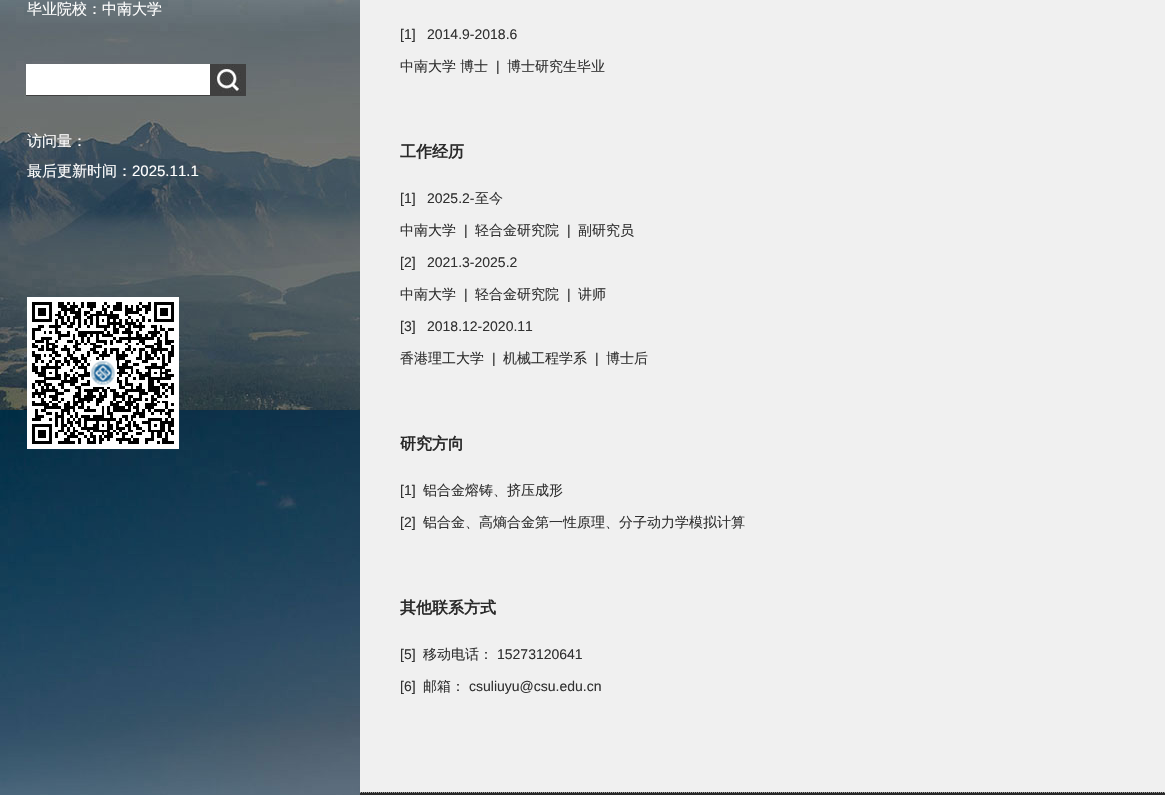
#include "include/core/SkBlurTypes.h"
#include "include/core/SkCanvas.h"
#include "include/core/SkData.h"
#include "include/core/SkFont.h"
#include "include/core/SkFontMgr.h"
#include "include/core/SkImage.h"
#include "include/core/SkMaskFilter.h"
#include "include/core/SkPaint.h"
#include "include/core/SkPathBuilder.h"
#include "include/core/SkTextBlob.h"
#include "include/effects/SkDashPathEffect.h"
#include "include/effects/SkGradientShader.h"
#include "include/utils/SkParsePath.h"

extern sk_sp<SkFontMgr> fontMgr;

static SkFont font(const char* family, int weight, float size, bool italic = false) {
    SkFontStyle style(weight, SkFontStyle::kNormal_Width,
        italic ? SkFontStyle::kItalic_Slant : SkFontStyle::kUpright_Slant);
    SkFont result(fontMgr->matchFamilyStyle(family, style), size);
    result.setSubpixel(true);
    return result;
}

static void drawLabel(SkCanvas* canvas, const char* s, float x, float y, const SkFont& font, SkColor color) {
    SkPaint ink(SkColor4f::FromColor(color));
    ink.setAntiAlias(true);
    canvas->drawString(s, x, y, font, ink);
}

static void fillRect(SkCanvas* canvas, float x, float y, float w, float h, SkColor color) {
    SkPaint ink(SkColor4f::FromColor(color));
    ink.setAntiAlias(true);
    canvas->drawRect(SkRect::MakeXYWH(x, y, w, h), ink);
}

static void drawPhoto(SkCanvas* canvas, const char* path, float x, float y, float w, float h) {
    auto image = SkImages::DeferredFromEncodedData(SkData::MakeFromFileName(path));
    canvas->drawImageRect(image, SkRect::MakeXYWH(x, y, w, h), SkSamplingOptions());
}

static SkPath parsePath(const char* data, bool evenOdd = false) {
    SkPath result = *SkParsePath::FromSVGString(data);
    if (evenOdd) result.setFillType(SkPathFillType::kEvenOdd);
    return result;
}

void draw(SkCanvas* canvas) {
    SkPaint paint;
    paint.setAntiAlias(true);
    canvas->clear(0xFFF0F0F0);
    drawPhoto(canvas, "assets/img1.png", 0, 0, 360, 795);
    SkFont font1 = font("WenQuanYi Zen Hei", 500, 15);
    drawLabel(canvas, "毕业院校：中南大学", 27, 14, font1, 0xFFFFFFFF);
    fillRect(canvas, 26, 64, 220, 32, 0xFF404040);
    fillRect(canvas, 26, 64, 184, 31, 0xFFFFFFFF);
    drawPhoto(canvas, "assets/img2.png", 213, 64, 28, 29);
    drawLabel(canvas, "访问量：", 27, 146, font1, 0xFFFFFFFF);
    drawLabel(canvas, "最后更新时间：", 27, 176, font1, 0xFFFFFFFF);
    SkFont font2 = font("Liberation Sans", 400, 15);
    drawLabel(canvas, "2025.11.1", 132, 176, font2, 0xFFFFFFFF);
    fillRect(canvas, 27, 297, 152, 152, 0xFFFFFFFF);
    drawPhoto(canvas, "assets/img3.png", 32, 302, 142, 142);
    SkFont font3 = font("Liberation Sans", 400, 14);
    drawLabel(canvas, "[1]", 400, 39, font3, 0xFF313131);
    drawLabel(canvas, "2014.9-2018.6", 427, 39, font3, 0xFF313131);
    SkFont font4 = font("WenQuanYi Zen Hei", 500, 14);
    drawLabel(canvas, "中南大学", 400, 71, font4, 0xFF313131);
    drawLabel(canvas, "博士", 460, 71, font4, 0xFF313131);
    drawLabel(canvas, "|", 496, 71, font3, 0xFF313131);
    drawLabel(canvas, "博士研究生毕业", 507, 71, font4, 0xFF313131);
    SkFont font5 = font("WenQuanYi Zen Hei", 700, 16);
    drawLabel(canvas, "工作经历", 400, 157, font5, 0xFF2A2A2A);
    drawLabel(canvas, "[1]", 400, 203, font3, 0xFF313131);
    drawLabel(canvas, "2025.2-", 427, 203, font3, 0xFF313131);
    drawLabel(canvas, "至今", 475, 203, font4, 0xFF313131);
    drawLabel(canvas, "中南大学", 400, 235, font4, 0xFF313131);
    drawLabel(canvas, "|", 464, 235, font3, 0xFF313131);
    drawLabel(canvas, "轻合金研究院", 475, 235, font4, 0xFF313131);
    drawLabel(canvas, "|", 567, 235, font3, 0xFF313131);
    drawLabel(canvas, "副研究员", 578, 235, font4, 0xFF313131);
    drawLabel(canvas, "[2]", 400, 267, font3, 0xFF313131);
    drawLabel(canvas, "2021.3-2025.2", 427, 267, font3, 0xFF313131);
    drawLabel(canvas, "中南大学", 400, 299, font4, 0xFF313131);
    drawLabel(canvas, "|", 464, 299, font3, 0xFF313131);
    drawLabel(canvas, "轻合金研究院", 475, 299, font4, 0xFF313131);
    drawLabel(canvas, "|", 567, 299, font3, 0xFF313131);
    drawLabel(canvas, "讲师", 578, 299, font4, 0xFF313131);
    drawLabel(canvas, "[3]", 400, 331, font3, 0xFF313131);
    drawLabel(canvas, "2018.12-2020.11", 427, 331, font3, 0xFF313131);
    drawLabel(canvas, "香港理工大学", 400, 363, font4, 0xFF313131);
    drawLabel(canvas, "|", 492, 363, font3, 0xFF313131);
    drawLabel(canvas, "机械工程学系", 503, 363, font4, 0xFF313131);
    drawLabel(canvas, "|", 595, 363, font3, 0xFF313131);
    drawLabel(canvas, "博士后", 606, 363, font4, 0xFF313131);
    drawLabel(canvas, "研究方向", 400, 449, font5, 0xFF2A2A2A);
    drawLabel(canvas, "[1]", 400, 495, font3, 0xFF313131);
    drawLabel(canvas, "铝合金熔铸、挤压成形", 423, 495, font4, 0xFF313131);
    drawLabel(canvas, "[2]", 400, 527, font3, 0xFF313131);
    drawLabel(canvas, "铝合金、高熵合金第一性原理、分子动力学模拟计算", 423, 527, font4, 0xFF313131);
    drawLabel(canvas, "其他联系方式", 400, 613, font5, 0xFF2A2A2A);
    drawLabel(canvas, "[5]", 400, 659, font3, 0xFF313131);
    drawLabel(canvas, "移动电话：", 423, 659, font4, 0xFF313131);
    drawLabel(canvas, "15273120641", 497, 659, font3, 0xFF313131);
    drawLabel(canvas, "[6]", 400, 691, font3, 0xFF313131);
    drawLabel(canvas, "邮箱：", 423, 691, font4, 0xFF313131);
    drawLabel(canvas, "csuliuyu@csu.edu.cn", 469, 691, font3, 0xFF313131);
    fillRect(canvas, 360, 792, 805, 3, 0xFF2A2A2A);
    paint.setStroke(true);
    paint.setStrokeWidth(1);
    paint.setColor(0xFF9E9E9E);
    paint.setPathEffect(SkDashPathEffect::Make({{1, 1}}, 0));
    canvas->drawPath(parsePath("M360 792.5H1165"), paint);
    paint.setPathEffect(nullptr);
}
